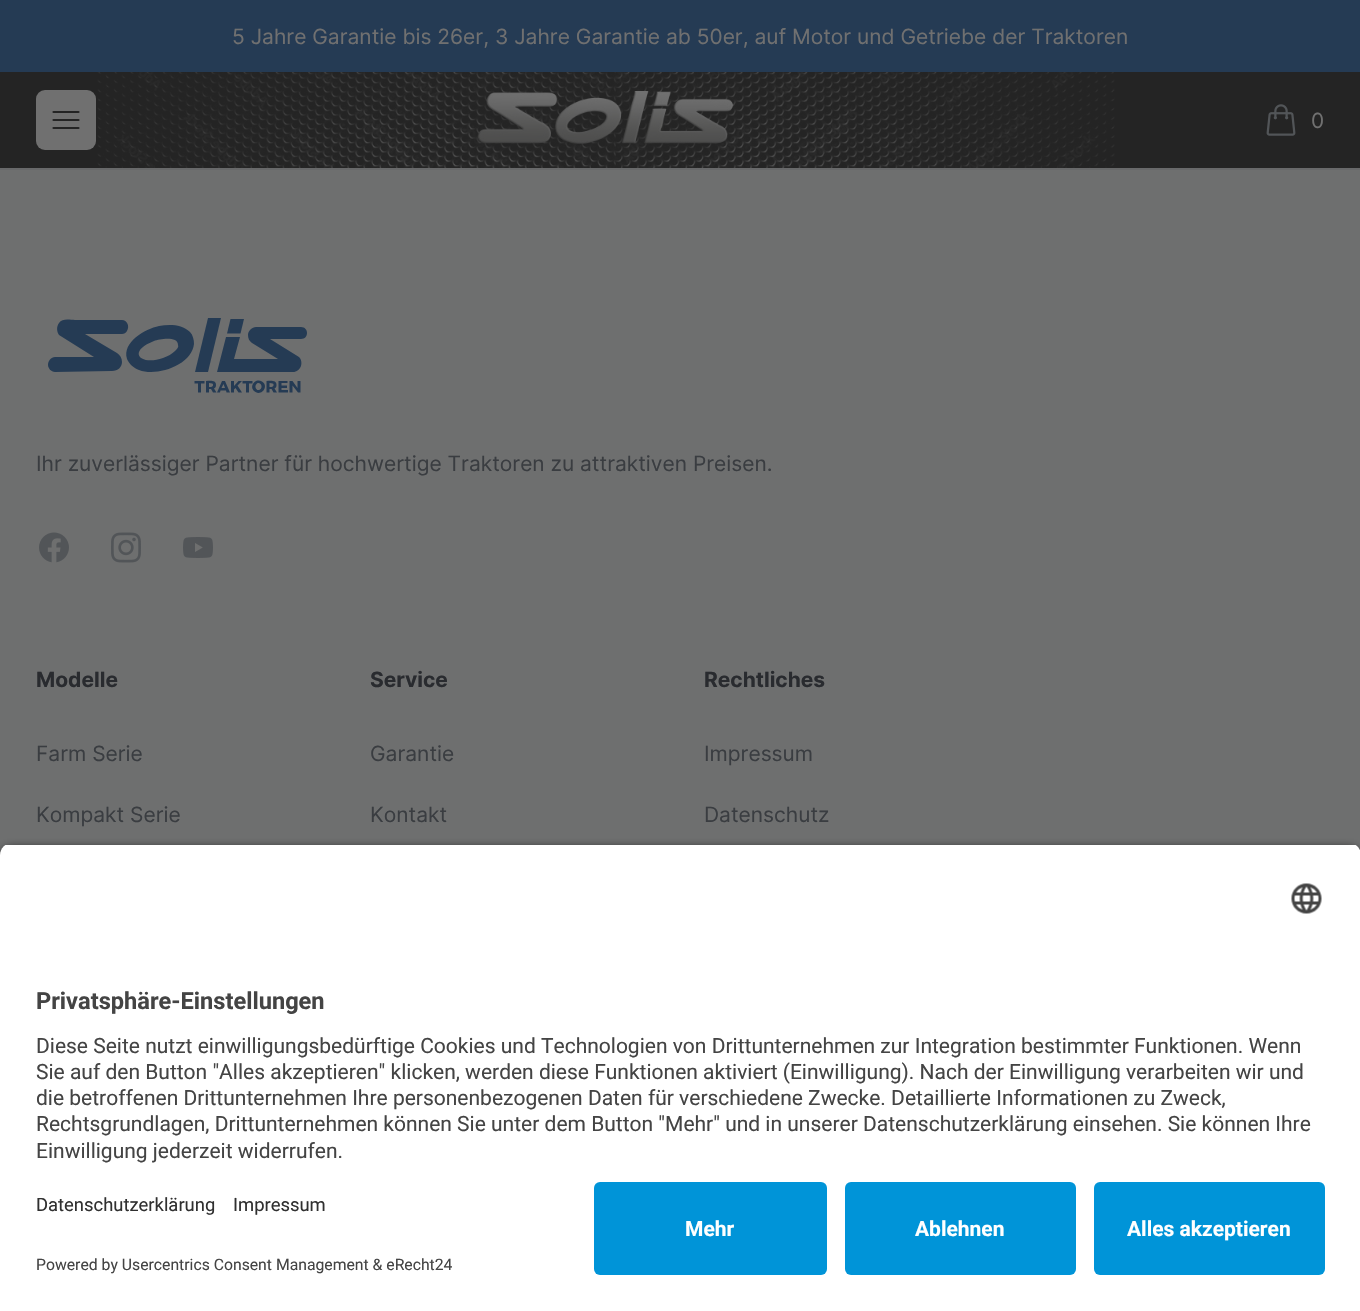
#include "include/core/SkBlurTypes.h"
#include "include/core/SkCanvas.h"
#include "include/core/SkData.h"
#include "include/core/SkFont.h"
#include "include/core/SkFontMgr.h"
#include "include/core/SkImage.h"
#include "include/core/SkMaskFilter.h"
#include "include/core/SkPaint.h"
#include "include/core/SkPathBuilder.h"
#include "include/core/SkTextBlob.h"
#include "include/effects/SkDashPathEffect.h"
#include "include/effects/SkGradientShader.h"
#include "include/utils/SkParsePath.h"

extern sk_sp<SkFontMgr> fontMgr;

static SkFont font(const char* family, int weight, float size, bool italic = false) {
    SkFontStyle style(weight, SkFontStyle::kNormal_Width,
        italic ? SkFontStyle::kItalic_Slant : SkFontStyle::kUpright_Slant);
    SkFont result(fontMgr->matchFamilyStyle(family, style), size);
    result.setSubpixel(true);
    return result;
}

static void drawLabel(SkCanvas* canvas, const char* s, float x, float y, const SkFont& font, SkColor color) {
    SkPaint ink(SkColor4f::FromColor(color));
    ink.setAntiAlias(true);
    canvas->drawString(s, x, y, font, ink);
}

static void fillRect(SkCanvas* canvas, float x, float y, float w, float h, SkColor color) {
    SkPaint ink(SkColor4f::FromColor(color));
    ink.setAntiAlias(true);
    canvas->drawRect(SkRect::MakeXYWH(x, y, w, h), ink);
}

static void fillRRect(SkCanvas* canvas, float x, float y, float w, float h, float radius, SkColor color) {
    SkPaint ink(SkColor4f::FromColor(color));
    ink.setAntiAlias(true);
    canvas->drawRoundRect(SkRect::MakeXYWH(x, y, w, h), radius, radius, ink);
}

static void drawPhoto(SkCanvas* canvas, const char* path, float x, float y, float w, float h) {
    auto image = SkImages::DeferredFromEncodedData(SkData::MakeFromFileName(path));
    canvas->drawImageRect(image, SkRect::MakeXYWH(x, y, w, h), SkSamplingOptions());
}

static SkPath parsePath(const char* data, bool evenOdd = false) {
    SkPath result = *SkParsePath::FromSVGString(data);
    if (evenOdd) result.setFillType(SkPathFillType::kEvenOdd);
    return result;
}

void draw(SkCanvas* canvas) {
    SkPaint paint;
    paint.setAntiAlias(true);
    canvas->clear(0xFF6E6F6F);
    fillRect(canvas, 0, 72, 1360, 96, 0xFF242424);
    fillRect(canvas, 0, 0, 1360, 72, 0xFF253B54);
    SkFont font1 = font("Inter", 400, 21);
    drawLabel(canvas, "5 Jahre Garantie bis 26er, 3 Jahre Garantie ab 50er, auf Motor und Getriebe der Traktoren", 232, 44, font1, 0xFF707070);
    fillRRect(canvas, 36, 90, 60, 60, 9, 0xFF707070);
    paint.setStroke(true);
    paint.setStrokeWidth(2.2f);
    paint.setStrokeCap(SkPaint::kRound_Cap);
    paint.setStrokeJoin(SkPaint::kRound_Join);
    paint.setColor(0xFF242424);
    canvas->drawPath(parsePath("M53.5 112H78.5M53.5 120H78.5M53.5 128H78.5"), paint);
    drawPhoto(canvas, "assets/img1.png", 97, 72, 1018, 96);
    drawPhoto(canvas, "assets/img2.png", 1266, 104, 30, 32);
    drawLabel(canvas, "0", 1311, 128, font1, 0xFF707070);
    fillRect(canvas, 0, 168, 1360, 2, 0xFF68696A);
    paint.setStroke(false);
    paint.setColor(0xFF253B54);
    canvas->drawPath(parsePath("M194.5 381V383.5H198V392.5H201V383.5H204.5V381Z"), paint);
    canvas->drawPath(parsePath("M213 392.5H216.5L214 388.5C215 388 216 387 216 385.5C216.5 379.5 209.5 381 206 381V392.5H209V389H211ZM209 387V383L212 383.5C214 384 213 387 211 387ZM226.5 392.5H230L225 381H222L217 392.5H220L220.5 390.5H226ZM221.5 388L223.5 384L225 388Z", true), paint);
    canvas->drawPath(parsePath("M242 392.5L237.5 385.5L242 381H238.5L234 386V381H231V392.5H234V389.5L235.5 388L238.5 392.5ZM242.5 381V383.5H246V392.5H249V383.5H252.5V381Z"), paint);
    canvas->drawPath(parsePath("M262 381.5C254.5 377.5 248 388 255.5 392C262.5 396 269 385.5 262 381.5ZM257 383.5C260.5 381.5 263.5 387.5 260 389.5C256.5 392 253.5 386 257 383.5ZM273.5 392.5H277L274.5 388.5C275.5 388 276.5 387 276.5 385.5C277 379.5 270 381 266.5 381V392.5H269.5V389H271.5ZM269.5 387V383L272.5 383.5C274.5 384 273.5 387 271.5 387Z", true), paint);
    canvas->drawPath(parsePath("M278.5 381V392.5H288V390H281.5V388H287V385.5H281.5V383H287.5V381ZM297.5 381V388L292.5 381H289.5V392.5H292.5V385.5L298 392.5H300.5V381Z"), paint);
    canvas->drawPath(parsePath("M127 331C130 326 127 320 122 320H75C70 320 62 318 59 323C56 327 57 332 59 335L94 357H55C51 357 48 361 48 365C48 368 51 372 55 372L112 371C118 371 122 367 122 362C122 358 120 355 117 353L85 334H122C124 334 126 333 127 331Z"), paint);
    canvas->drawPath(parsePath("M240.5 333.5H227L230.5 319H244Z"), paint);
    canvas->drawPath(parsePath("M256 327H301C305 327 307 330 307 333C307 336 305 339 301 339H270L299 357C304 362 301 372 293 372H217L226 337H240L234 359H278L252 343C249 341 248 338 248 335C248 331 252 327 256 327Z"), paint);
    canvas->drawPath(parsePath("M221 318H208L195 372H208Z"), paint);
    canvas->drawPath(parsePath("M159 326C169 324 182 324 190 332C193 335 194 340 194 344C192 365 157 377 139 370C134 368 129 364 127 359C122 342 145 329 159 326ZM163 358C168 356 172 354 175 351C177 349 179 347 178 345C178 336 160 339 154 341C126 352 141 366 163 358Z", true), paint);
    drawLabel(canvas, "Ihr zuverlässiger Partner für hochwertige Traktoren zu attraktiven Preisen.", 36, 471, font1, 0xFF3A3D41);
    drawPhoto(canvas, "assets/img3.png", 39, 532, 30, 31);
    drawPhoto(canvas, "assets/img4.png", 111, 532, 30, 31);
    drawPhoto(canvas, "assets/img5.png", 183, 537, 30, 21);
    SkFont font2 = font("Inter", 700, 21);
    drawLabel(canvas, "Modelle", 36, 687, font2, 0xFF292B2F);
    drawLabel(canvas, "Farm Serie", 36, 761, font1, 0xFF3A3D41);
    drawLabel(canvas, "Kompakt Serie", 36, 822, font1, 0xFF3A3D41);
    drawLabel(canvas, "Service", 370, 687, font2, 0xFF292B2F);
    drawLabel(canvas, "Garantie", 370, 761, font1, 0xFF3A3D41);
    drawLabel(canvas, "Kontakt", 370, 822, font1, 0xFF3A3D41);
    drawLabel(canvas, "Rechtliches", 704, 687, font2, 0xFF292B2F);
    drawLabel(canvas, "Impressum", 704, 761, font1, 0xFF3A3D41);
    drawLabel(canvas, "Datenschutz", 704, 822, font1, 0xFF3A3D41);
    paint.setColor(0xCC000000);
    paint.setMaskFilter(SkMaskFilter::MakeBlur(kNormal_SkBlurStyle, 5));
    canvas->drawRoundRect(SkRect::MakeXYWH(0, 848, 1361, 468), 12, 12, paint);
    paint.setMaskFilter(nullptr);
    canvas->save();
    canvas->clipPath(parsePath("M12 843H1349C1355.5 843 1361 848.5 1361 855V1170H0V855C0 848.5 5.5 843 12 843Z"), true);
    fillRect(canvas, 0, 845, 1360, 325, 0xFFFFFFFF);
    canvas->restore();
    drawPhoto(canvas, "assets/img6.png", 1291, 883, 31, 31);
    SkFont font3 = font("Roboto", 700, 23.6f);
    drawLabel(canvas, "Privatsphäre-Einstellungen", 36, 1009, font3, 0xFF444444);
    SkFont font4 = font("Roboto", 400, 21);
    drawLabel(canvas, "Diese Seite nutzt einwilligungsbedürftige Cookies und Technologien von Drittunternehmen zur Integration bestimmter Funktionen. Wenn", 36, 1053, font4, 0xFF444444);
    drawLabel(canvas, "Sie auf den Button \"Alles akzeptieren\" klicken, werden diese Funktionen aktiviert (Einwilligung). Nach der Einwilligung verarbeiten wir und", 36, 1079, font4, 0xFF444444);
    drawLabel(canvas, "die betroffenen Drittunternehmen Ihre personenbezogenen Daten für verschiedene Zwecke. Detaillierte Informationen zu Zweck,", 36, 1105, font4, 0xFF444444);
    drawLabel(canvas, "Rechtsgrundlagen, Drittunternehmen können Sie unter dem Button \"Mehr\" und in unserer Datenschutzerklärung einsehen. Sie können Ihre", 36, 1131, font4, 0xFF444444);
    drawLabel(canvas, "Einwilligung jederzeit widerrufen.", 36, 1158, font4, 0xFF444444);
    fillRect(canvas, 0, 1170, 1360, 141, 0xFFFFFFFF);
    SkFont font5 = font("Roboto", 400, 18.4f);
    drawLabel(canvas, "Datenschutzerklärung", 36, 1211, font5, 0xFF303030);
    drawLabel(canvas, "Impressum", 233, 1211, font5, 0xFF303030);
    SkFont font6 = font("Roboto", 400, 15.75f);
    drawLabel(canvas, "Powered by Usercentrics Consent Management & eRecht24", 36, 1270, font6, 0xFF444444);
    fillRRect(canvas, 594, 1182, 233, 93, 6, 0xFF0094D8);
    SkFont font7 = font("Roboto", 700, 21);
    drawLabel(canvas, "Mehr", 685, 1236, font7, 0xFFFFFFFF);
    fillRRect(canvas, 845, 1182, 231, 93, 6, 0xFF0094D8);
    drawLabel(canvas, "Ablehnen", 915, 1236, font7, 0xFFFFFFFF);
    fillRRect(canvas, 1094, 1182, 231, 93, 6, 0xFF0094D8);
    drawLabel(canvas, "Alles akzeptieren", 1127, 1236, font7, 0xFFFFFFFF);
}
